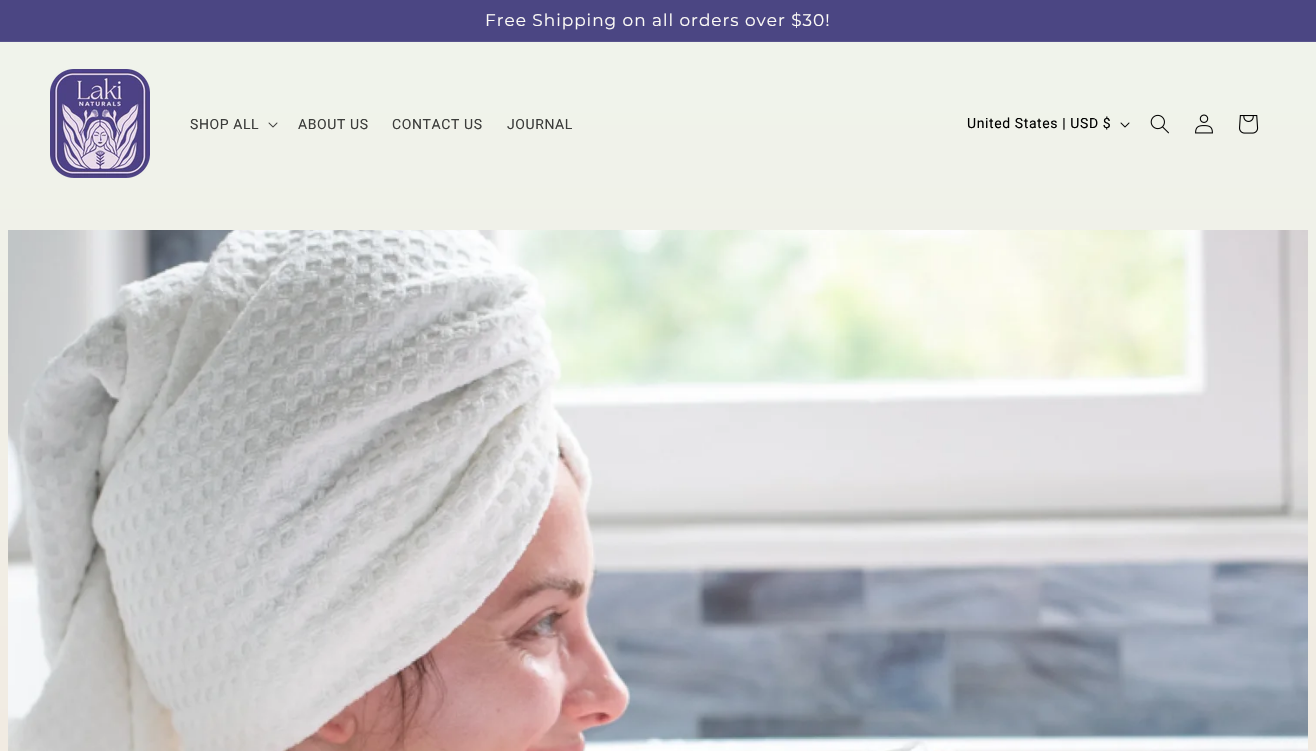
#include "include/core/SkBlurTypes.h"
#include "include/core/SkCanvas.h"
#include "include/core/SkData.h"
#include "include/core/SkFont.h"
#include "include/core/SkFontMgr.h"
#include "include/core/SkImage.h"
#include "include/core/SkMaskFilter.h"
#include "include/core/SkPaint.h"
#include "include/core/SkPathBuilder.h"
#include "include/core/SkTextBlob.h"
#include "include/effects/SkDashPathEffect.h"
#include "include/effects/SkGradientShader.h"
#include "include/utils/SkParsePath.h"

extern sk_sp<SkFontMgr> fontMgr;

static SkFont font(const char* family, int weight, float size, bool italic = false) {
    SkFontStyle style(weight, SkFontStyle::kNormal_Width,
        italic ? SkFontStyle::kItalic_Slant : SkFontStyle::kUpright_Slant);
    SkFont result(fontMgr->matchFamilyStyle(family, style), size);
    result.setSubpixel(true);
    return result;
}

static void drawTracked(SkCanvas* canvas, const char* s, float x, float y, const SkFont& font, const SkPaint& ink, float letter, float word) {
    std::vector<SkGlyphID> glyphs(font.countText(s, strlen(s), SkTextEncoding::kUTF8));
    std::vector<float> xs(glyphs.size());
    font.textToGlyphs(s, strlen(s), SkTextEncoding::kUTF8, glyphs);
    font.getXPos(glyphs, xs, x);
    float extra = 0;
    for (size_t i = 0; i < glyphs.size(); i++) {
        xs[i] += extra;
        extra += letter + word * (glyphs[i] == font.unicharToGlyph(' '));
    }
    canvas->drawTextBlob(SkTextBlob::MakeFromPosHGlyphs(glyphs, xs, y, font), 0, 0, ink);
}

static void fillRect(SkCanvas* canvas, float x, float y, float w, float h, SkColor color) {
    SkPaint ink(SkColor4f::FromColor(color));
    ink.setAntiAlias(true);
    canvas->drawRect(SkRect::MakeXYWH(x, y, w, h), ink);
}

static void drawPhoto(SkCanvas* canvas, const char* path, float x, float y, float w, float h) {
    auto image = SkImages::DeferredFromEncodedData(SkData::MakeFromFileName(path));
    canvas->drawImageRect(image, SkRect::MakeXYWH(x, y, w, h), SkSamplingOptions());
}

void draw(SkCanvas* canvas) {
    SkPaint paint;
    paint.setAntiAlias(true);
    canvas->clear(0xFFFFFFFF);
    {
        const SkColor colors[] = {0xFFF0F4EC, 0xFFF1EBE2};
        const float stops[] = {0, 1};
        const SkPoint ends[] = {{658, 0}, {658, 751}};
        paint.setShader(SkGradientShader::MakeLinear(ends, colors, stops, 2, SkTileMode::kClamp));
        paint.setAlpha(255);
    }
    canvas->drawRect(SkRect::MakeXYWH(0, 42, 1316, 709), paint);
    fillRect(canvas, 0, 0, 1316, 41, 0xFF4B4683);
    fillRect(canvas, 0, 41, 1316, 1, 0xFF59548C);
    SkFont font1 = font("Montserrat", 400, 16.9f);
    paint.setShader(nullptr);
    paint.setColor(0xFFFDFBF7);
    drawTracked(canvas, "Free Shipping on all orders over $30!", 485, 26, font1, paint, 1, 0);
    drawPhoto(canvas, "assets/img1.png", 50, 69, 100, 109);
    SkFont font2 = font("Roboto", 400, 14);
    paint.setColor(0xFF3C3D3B);
    drawTracked(canvas, "SHOP ALL", 190, 129, font2, paint, 0.6f, 0);
    drawPhoto(canvas, "assets/img2.png", 268, 122, 10, 6);
    drawTracked(canvas, "ABOUT US", 298, 129, font2, paint, 0.6f, 0);
    drawTracked(canvas, "CONTACT US", 392, 129, font2, paint, 0.6f, 0);
    drawTracked(canvas, "JOURNAL", 507, 129, font2, paint, 0.6f, 0);
    paint.setColor(0xFF000000);
    drawTracked(canvas, "United States | USD $", 967, 128, font2, paint, 0.6f, 0);
    drawPhoto(canvas, "assets/img3.png", 1120, 122, 10, 6);
    drawPhoto(canvas, "assets/img4.png", 1150, 114, 19, 20);
    drawPhoto(canvas, "assets/img5.png", 1195, 114, 18, 20);
    drawPhoto(canvas, "assets/img6.png", 1239, 115, 20, 19);
    drawPhoto(canvas, "assets/img7.png", 8, 230, 1300, 521);
}
